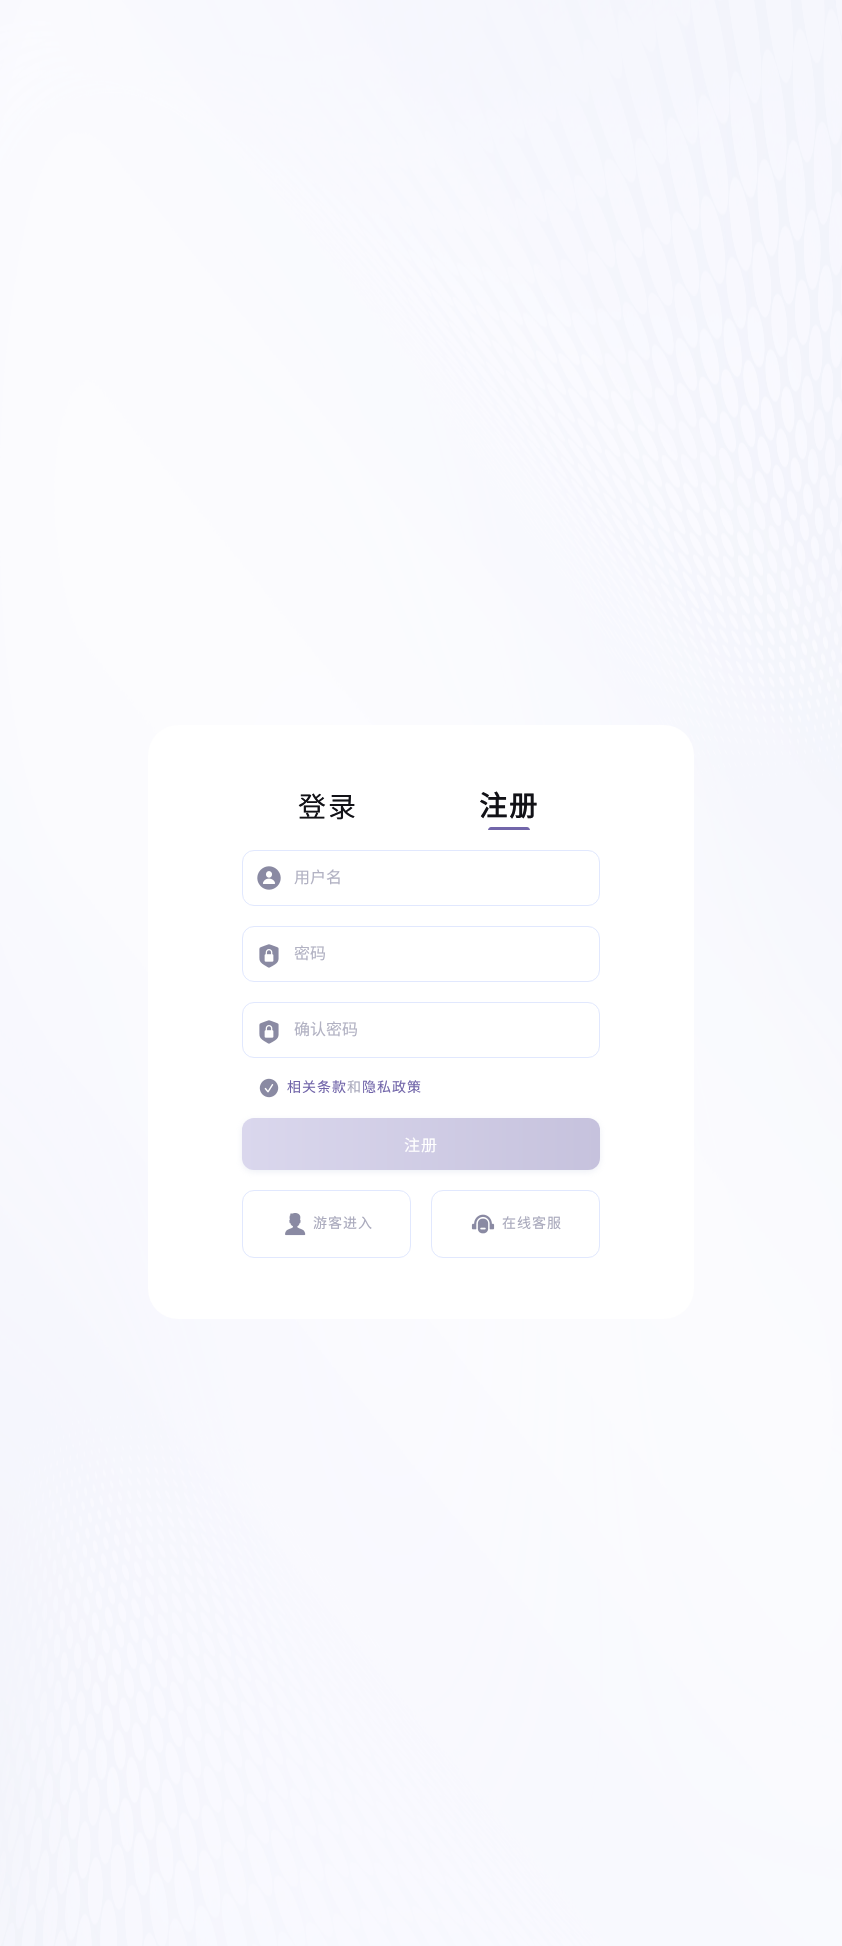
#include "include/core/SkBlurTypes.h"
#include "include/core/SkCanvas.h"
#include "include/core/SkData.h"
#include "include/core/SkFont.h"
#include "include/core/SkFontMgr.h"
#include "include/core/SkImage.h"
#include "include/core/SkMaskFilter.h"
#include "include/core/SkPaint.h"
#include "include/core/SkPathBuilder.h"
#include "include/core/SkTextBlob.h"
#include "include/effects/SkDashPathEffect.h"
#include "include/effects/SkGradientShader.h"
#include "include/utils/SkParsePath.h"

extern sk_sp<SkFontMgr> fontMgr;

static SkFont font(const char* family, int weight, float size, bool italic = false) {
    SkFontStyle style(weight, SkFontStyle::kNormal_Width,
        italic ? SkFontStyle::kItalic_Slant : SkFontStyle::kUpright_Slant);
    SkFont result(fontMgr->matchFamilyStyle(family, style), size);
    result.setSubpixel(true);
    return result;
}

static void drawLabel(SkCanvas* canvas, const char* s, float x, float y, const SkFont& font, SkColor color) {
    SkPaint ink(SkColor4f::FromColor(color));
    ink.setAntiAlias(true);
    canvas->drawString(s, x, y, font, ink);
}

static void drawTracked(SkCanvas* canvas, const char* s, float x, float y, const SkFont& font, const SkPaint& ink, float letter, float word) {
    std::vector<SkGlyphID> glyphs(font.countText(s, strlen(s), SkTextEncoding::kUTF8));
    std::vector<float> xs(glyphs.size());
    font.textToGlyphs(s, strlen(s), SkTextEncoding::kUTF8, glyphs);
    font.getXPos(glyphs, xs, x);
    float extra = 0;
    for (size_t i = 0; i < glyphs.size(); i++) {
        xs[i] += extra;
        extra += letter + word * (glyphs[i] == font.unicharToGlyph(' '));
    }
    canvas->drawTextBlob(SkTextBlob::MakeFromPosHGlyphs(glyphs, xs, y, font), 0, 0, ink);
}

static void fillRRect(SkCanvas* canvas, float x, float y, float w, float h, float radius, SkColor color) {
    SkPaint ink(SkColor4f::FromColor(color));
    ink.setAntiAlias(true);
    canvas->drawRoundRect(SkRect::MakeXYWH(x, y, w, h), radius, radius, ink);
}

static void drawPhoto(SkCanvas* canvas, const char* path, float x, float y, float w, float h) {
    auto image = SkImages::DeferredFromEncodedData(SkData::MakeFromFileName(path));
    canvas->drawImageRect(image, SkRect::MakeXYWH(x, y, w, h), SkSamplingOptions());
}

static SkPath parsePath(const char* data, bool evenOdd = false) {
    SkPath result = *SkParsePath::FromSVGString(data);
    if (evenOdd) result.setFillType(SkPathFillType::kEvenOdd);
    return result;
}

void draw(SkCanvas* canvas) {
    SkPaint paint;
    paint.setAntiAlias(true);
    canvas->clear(0xFFFFFFFF);
    drawPhoto(canvas, "assets/img1.png", 0, 0, 842, 1946);
    fillRRect(canvas, 148, 725, 546, 594, 30, 0xFFFFFFFF);
    SkFont font1 = font("Noto Sans CJK SC", 400, 28);
    paint.setColor(0xFF121217);
    drawTracked(canvas, "登录", 298, 817, font1, paint, 2, 0);
    SkFont font2 = font("Noto Sans CJK SC", 700, 28);
    drawTracked(canvas, "注册", 479, 816, font2, paint, 2, 0);
    paint.setColor(0xFF7266AA);
    canvas->drawPath(parsePath("M491 827H527C528.5 827 530 828.5 530 830H488C488 828.5 489.5 827 491 827Z"), paint);
    paint.setStroke(true);
    paint.setStrokeWidth(1);
    paint.setColor(0xFFE1E8FE);
    canvas->drawRoundRect(SkRect::MakeXYWH(242.5f, 850.5f, 357, 55), 11.5f, 11.5f, paint);
    drawPhoto(canvas, "assets/img2.png", 257, 866, 24, 24);
    SkFont font3 = font("Noto Sans CJK SC", 400, 16);
    drawLabel(canvas, "用户名", 294, 883, font3, 0xFFB2B2C3);
    canvas->drawRoundRect(SkRect::MakeXYWH(242.5f, 926.5f, 357, 55), 11.5f, 11.5f, paint);
    drawPhoto(canvas, "assets/img3.png", 259, 944, 20, 24);
    drawLabel(canvas, "密码", 294, 959, font3, 0xFFB2B2C3);
    canvas->drawRoundRect(SkRect::MakeXYWH(242.5f, 1002.5f, 357, 55), 11.5f, 11.5f, paint);
    drawPhoto(canvas, "assets/img3.png", 259, 1020, 20, 24);
    drawLabel(canvas, "确认密码", 294, 1035, font3, 0xFFB2B2C3);
    drawPhoto(canvas, "assets/img4.png", 259, 1078, 20, 20);
    SkFont font4 = font("Noto Sans CJK SC", 400, 14);
    paint.setStroke(false);
    paint.setColor(0xFF7266AA);
    drawTracked(canvas, "相关条款", 287, 1092, font4, paint, 1, 0);
    paint.setColor(0xFFA9A9BC);
    drawTracked(canvas, "和", 347, 1092, font4, paint, 1, 0);
    paint.setColor(0xFF7266AA);
    drawTracked(canvas, "隐私政策", 362, 1092, font4, paint, 1, 0);
    paint.setColor(0x33ABB6D2);
    paint.setMaskFilter(SkMaskFilter::MakeBlur(kNormal_SkBlurStyle, 3));
    canvas->drawRoundRect(SkRect::MakeXYWH(242, 1120, 358, 52), 12, 12, paint);
    paint.setMaskFilter(nullptr);
    {
        const SkColor colors[] = {0xFFDAD7ED, 0xFFC6C2DD};
        const float stops[] = {0, 1};
        const SkPoint ends[] = {{242, 1144}, {600, 1144}};
        paint.setShader(SkGradientShader::MakeLinear(ends, colors, stops, 2, SkTileMode::kClamp));
        paint.setAlpha(255);
    }
    canvas->drawRoundRect(SkRect::MakeXYWH(242, 1118, 358, 52), 12, 12, paint);
    paint.setShader(nullptr);
    paint.setColor(0xFFFFFFFF);
    drawTracked(canvas, "注册", 404, 1151, font3, paint, 1, 0);
    paint.setStroke(true);
    paint.setColor(0xFFE1E8FE);
    canvas->drawRoundRect(SkRect::MakeXYWH(242.5f, 1190.5f, 168, 67), 11.5f, 11.5f, paint);
    drawPhoto(canvas, "assets/img5.png", 285, 1213, 21, 23);
    paint.setStroke(false);
    paint.setColor(0xFFA9A9BC);
    drawTracked(canvas, "游客进入", 313, 1228, font4, paint, 1, 0);
    paint.setStroke(true);
    paint.setColor(0xFFE1E8FE);
    canvas->drawRoundRect(SkRect::MakeXYWH(431.5f, 1190.5f, 168, 67), 11.5f, 11.5f, paint);
    drawPhoto(canvas, "assets/img6.png", 471, 1214, 24, 20);
    paint.setStroke(false);
    paint.setColor(0xFFA9A9BC);
    drawTracked(canvas, "在线客服", 502, 1228, font4, paint, 1, 0);
}
